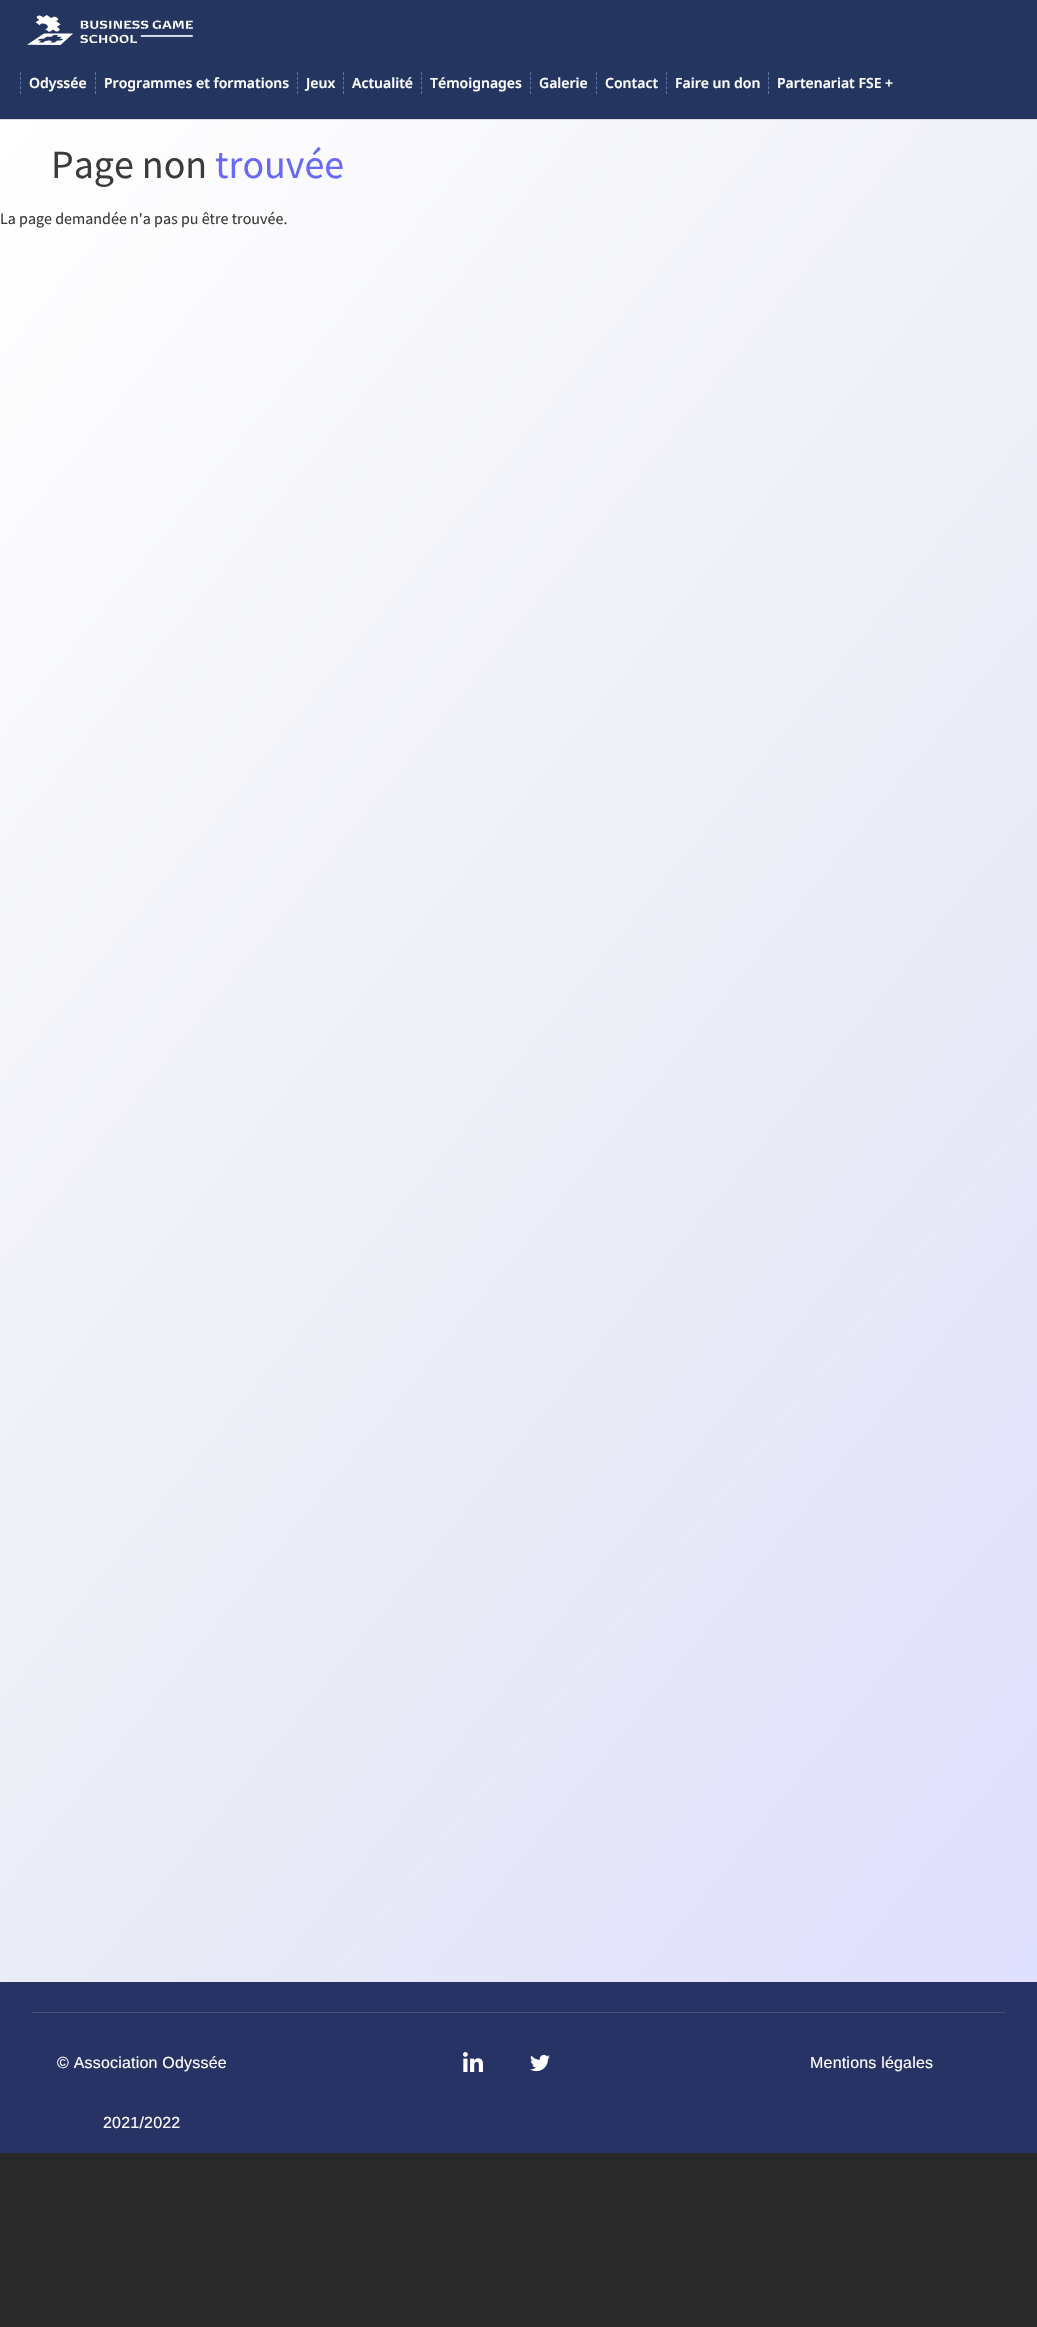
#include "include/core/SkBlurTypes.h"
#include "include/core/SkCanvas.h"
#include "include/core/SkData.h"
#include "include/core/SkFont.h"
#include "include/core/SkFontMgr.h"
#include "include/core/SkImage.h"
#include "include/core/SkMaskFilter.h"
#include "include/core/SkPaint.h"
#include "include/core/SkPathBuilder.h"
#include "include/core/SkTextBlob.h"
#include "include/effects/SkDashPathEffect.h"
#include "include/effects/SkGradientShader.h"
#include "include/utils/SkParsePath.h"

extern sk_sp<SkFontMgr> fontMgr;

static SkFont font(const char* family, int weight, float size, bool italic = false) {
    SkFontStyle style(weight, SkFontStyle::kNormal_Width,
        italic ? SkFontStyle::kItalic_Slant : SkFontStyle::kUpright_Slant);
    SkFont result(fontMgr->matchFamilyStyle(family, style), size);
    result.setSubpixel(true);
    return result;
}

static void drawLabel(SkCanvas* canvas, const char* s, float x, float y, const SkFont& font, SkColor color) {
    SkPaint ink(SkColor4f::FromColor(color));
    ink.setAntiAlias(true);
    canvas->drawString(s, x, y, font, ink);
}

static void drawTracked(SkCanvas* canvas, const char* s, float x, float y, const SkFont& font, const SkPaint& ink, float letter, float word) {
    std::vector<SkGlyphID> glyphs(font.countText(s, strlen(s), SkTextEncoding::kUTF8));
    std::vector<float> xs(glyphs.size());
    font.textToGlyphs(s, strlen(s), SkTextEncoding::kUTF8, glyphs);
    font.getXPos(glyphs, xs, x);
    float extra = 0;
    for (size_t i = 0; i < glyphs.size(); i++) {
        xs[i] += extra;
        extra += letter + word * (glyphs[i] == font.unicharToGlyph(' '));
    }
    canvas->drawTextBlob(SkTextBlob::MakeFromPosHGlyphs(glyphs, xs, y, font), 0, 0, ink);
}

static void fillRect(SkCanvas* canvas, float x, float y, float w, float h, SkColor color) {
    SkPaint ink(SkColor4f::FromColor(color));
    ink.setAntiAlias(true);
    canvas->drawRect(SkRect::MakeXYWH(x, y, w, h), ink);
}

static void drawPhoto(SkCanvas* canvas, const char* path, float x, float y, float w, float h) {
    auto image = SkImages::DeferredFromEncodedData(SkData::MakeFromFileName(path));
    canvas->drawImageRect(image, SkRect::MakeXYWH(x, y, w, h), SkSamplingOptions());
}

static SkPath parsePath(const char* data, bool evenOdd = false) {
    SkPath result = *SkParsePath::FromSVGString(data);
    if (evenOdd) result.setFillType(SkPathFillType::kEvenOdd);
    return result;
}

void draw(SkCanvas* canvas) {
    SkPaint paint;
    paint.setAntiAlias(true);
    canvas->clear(0xFF292929);
    fillRect(canvas, 0, 0, 1037, 119, 0xFF243660);
    fillRect(canvas, 0, 119, 1037, 1, 0xFFDDDDDD);
    drawPhoto(canvas, "assets/img1.png", 27, 15, 166, 30);
    paint.setStroke(true);
    paint.setStrokeWidth(1);
    paint.setColor(0xFF6175A5);
    paint.setPathEffect(SkDashPathEffect::Make({{3, 1.75f}}, 0));
    canvas->drawPath(parsePath("M20.5 72V94"), paint);
    paint.setPathEffect(nullptr);
    SkFont font1 = font("Noto Sans", 600, 14);
    drawLabel(canvas, "Odyssée", 29, 88, font1, 0xFFFFFFFF);
    paint.setPathEffect(SkDashPathEffect::Make({{3, 1.75f}}, 0));
    canvas->drawPath(parsePath("M95.5 72V94"), paint);
    paint.setPathEffect(nullptr);
    drawLabel(canvas, "Programmes et formations", 104, 88, font1, 0xFFFFFFFF);
    paint.setPathEffect(SkDashPathEffect::Make({{3, 1.75f}}, 0));
    canvas->drawPath(parsePath("M297.5 72V94"), paint);
    paint.setPathEffect(nullptr);
    drawLabel(canvas, "Jeux", 306, 88, font1, 0xFFFFFFFF);
    paint.setPathEffect(SkDashPathEffect::Make({{3, 1.75f}}, 0));
    canvas->drawPath(parsePath("M343.5 72V94"), paint);
    paint.setPathEffect(nullptr);
    drawLabel(canvas, "Actualité", 352, 88, font1, 0xFFFFFFFF);
    paint.setPathEffect(SkDashPathEffect::Make({{3, 1.75f}}, 0));
    canvas->drawPath(parsePath("M421.5 72V94"), paint);
    paint.setPathEffect(nullptr);
    drawLabel(canvas, "Témoignages", 430, 88, font1, 0xFFFFFFFF);
    paint.setPathEffect(SkDashPathEffect::Make({{3, 1.75f}}, 0));
    canvas->drawPath(parsePath("M530.5 72V94"), paint);
    paint.setPathEffect(nullptr);
    drawLabel(canvas, "Galerie", 539, 88, font1, 0xFFFFFFFF);
    paint.setPathEffect(SkDashPathEffect::Make({{3, 1.75f}}, 0));
    canvas->drawPath(parsePath("M596.5 72V94"), paint);
    paint.setPathEffect(nullptr);
    drawLabel(canvas, "Contact", 605, 88, font1, 0xFFFFFFFF);
    paint.setPathEffect(SkDashPathEffect::Make({{3, 1.75f}}, 0));
    canvas->drawPath(parsePath("M666.5 72V94"), paint);
    paint.setPathEffect(nullptr);
    drawLabel(canvas, "Faire un don", 675, 88, font1, 0xFFFFFFFF);
    paint.setPathEffect(SkDashPathEffect::Make({{3, 1.75f}}, 0));
    canvas->drawPath(parsePath("M768.5 72V94"), paint);
    paint.setPathEffect(nullptr);
    drawLabel(canvas, "Partenariat FSE +", 777, 88, font1, 0xFFFFFFFF);
    paint.setStroke(false);
    {
        const SkColor colors[] = {0xFFDFDFFE, 0xFFEAEBF5, 0xFFFFFFFF};
        const float stops[] = {0, 0.39f, 1};
        const SkPoint ends[] = {{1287, 1673}, {-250, 429}};
        paint.setShader(SkGradientShader::MakeLinear(ends, colors, stops, 3, SkTileMode::kClamp));
        paint.setAlpha(255);
    }
    canvas->drawRect(SkRect::MakeXYWH(0, 120, 1037, 1862), paint);
    SkFont font2 = font("Source Sans Pro", 400, 40);
    drawLabel(canvas, "Page non", 51, 178, font2, 0xFF3B3B3B);
    drawLabel(canvas, "trouvée", 215, 178, font2, 0xFF6869F6);
    SkFont font3 = font("Source Sans Pro", 400, 16);
    drawLabel(canvas, "La page demandée n'a pas pu être trouvée.", 0, 224, font3, 0xFF3B3B3B);
    fillRect(canvas, 0, 1982, 1037, 171, 0xFF283365);
    fillRect(canvas, 32, 2012, 973, 1, 0xFF48527C);
    SkFont font4 = font("Liberation Sans", 400, 16);
    paint.setShader(nullptr);
    paint.setColor(0xFFFFFFFF);
    drawTracked(canvas, "© Association Odyssée", 57, 2068, font4, paint, 0.2f, 0);
    drawTracked(canvas, "2021/2022", 103, 2128, font4, paint, 0.2f, 0);
    drawPhoto(canvas, "assets/img2.png", 463, 2052, 20, 20);
    drawPhoto(canvas, "assets/img3.png", 530, 2054, 20, 18);
    drawTracked(canvas, "Mentions légales", 810, 2068, font4, paint, 0.2f, 0);
}
